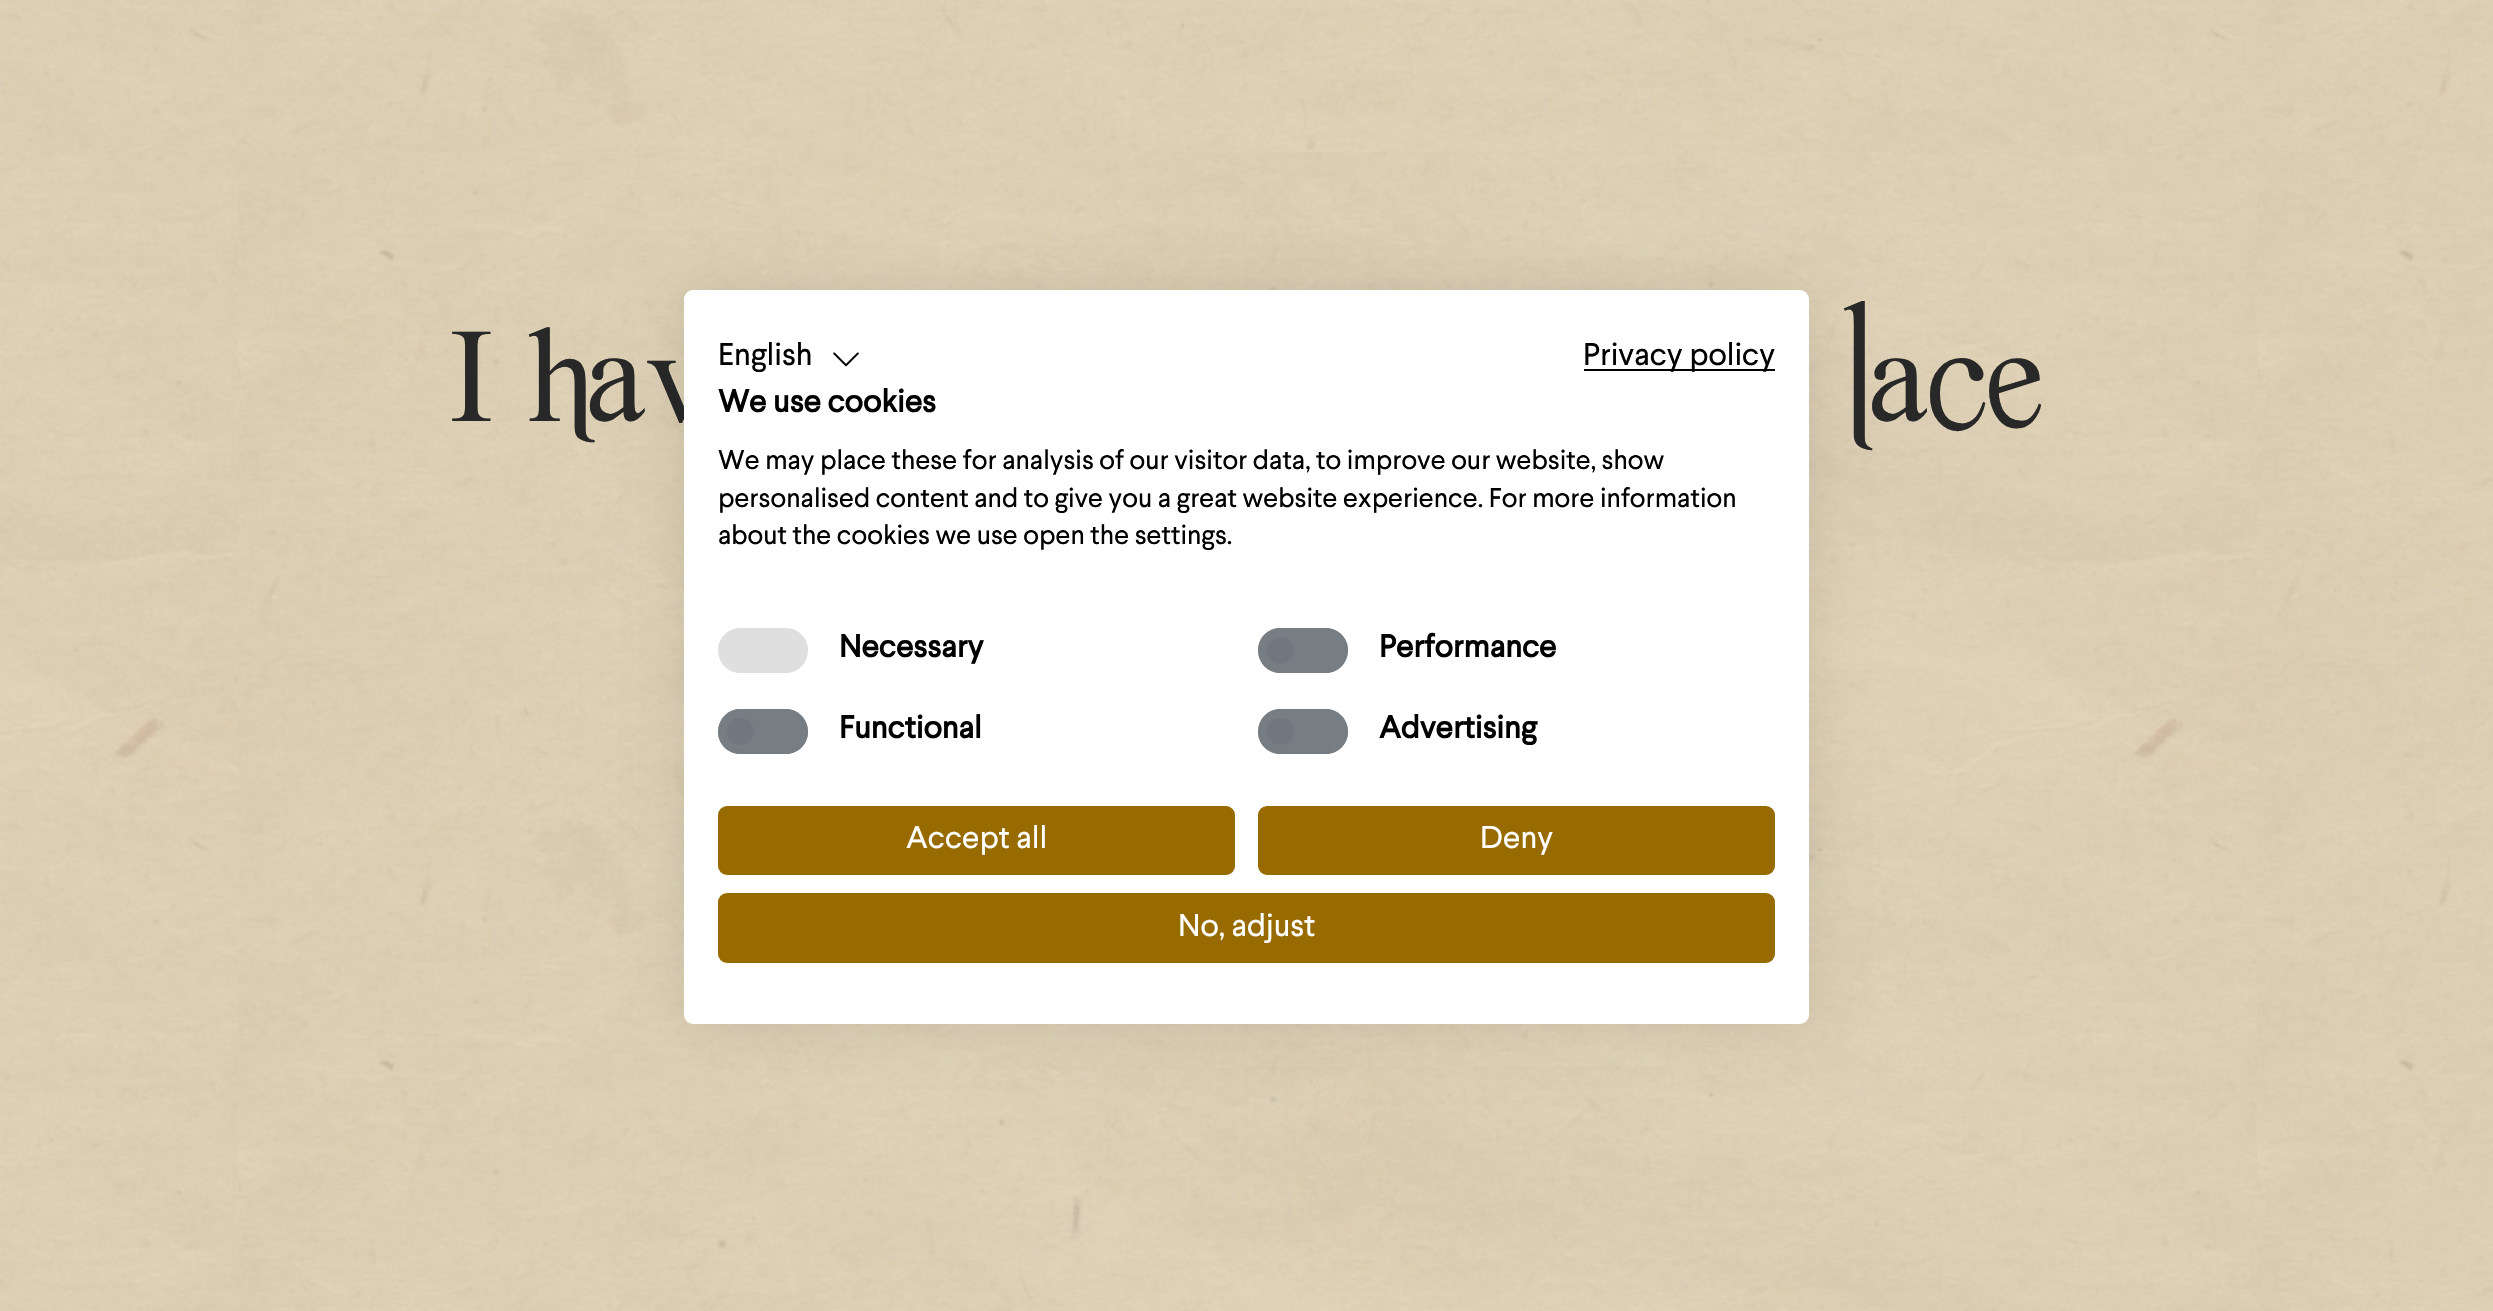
#include "include/core/SkBlurTypes.h"
#include "include/core/SkCanvas.h"
#include "include/core/SkData.h"
#include "include/core/SkFont.h"
#include "include/core/SkFontMgr.h"
#include "include/core/SkImage.h"
#include "include/core/SkMaskFilter.h"
#include "include/core/SkPaint.h"
#include "include/core/SkPathBuilder.h"
#include "include/core/SkTextBlob.h"
#include "include/effects/SkDashPathEffect.h"
#include "include/effects/SkGradientShader.h"
#include "include/utils/SkParsePath.h"

extern sk_sp<SkFontMgr> fontMgr;

static SkFont font(const char* family, int weight, float size, bool italic = false) {
    SkFontStyle style(weight, SkFontStyle::kNormal_Width,
        italic ? SkFontStyle::kItalic_Slant : SkFontStyle::kUpright_Slant);
    SkFont result(fontMgr->matchFamilyStyle(family, style), size);
    result.setSubpixel(true);
    return result;
}

static void drawLabel(SkCanvas* canvas, const char* s, float x, float y, const SkFont& font, SkColor color) {
    SkPaint ink(SkColor4f::FromColor(color));
    ink.setAntiAlias(true);
    canvas->drawString(s, x, y, font, ink);
}

static void fillRect(SkCanvas* canvas, float x, float y, float w, float h, SkColor color) {
    SkPaint ink(SkColor4f::FromColor(color));
    ink.setAntiAlias(true);
    canvas->drawRect(SkRect::MakeXYWH(x, y, w, h), ink);
}

static void fillRRect(SkCanvas* canvas, float x, float y, float w, float h, float radius, SkColor color) {
    SkPaint ink(SkColor4f::FromColor(color));
    ink.setAntiAlias(true);
    canvas->drawRoundRect(SkRect::MakeXYWH(x, y, w, h), radius, radius, ink);
}

static void drawPhoto(SkCanvas* canvas, const char* path, float x, float y, float w, float h) {
    auto image = SkImages::DeferredFromEncodedData(SkData::MakeFromFileName(path));
    canvas->drawImageRect(image, SkRect::MakeXYWH(x, y, w, h), SkSamplingOptions());
}

static SkPath parsePath(const char* data, bool evenOdd = false) {
    SkPath result = *SkParsePath::FromSVGString(data);
    if (evenOdd) result.setFillType(SkPathFillType::kEvenOdd);
    return result;
}

void draw(SkCanvas* canvas) {
    SkPaint paint;
    paint.setAntiAlias(true);
    canvas->clear(0xFFFFFFFF);
    drawPhoto(canvas, "assets/img1.png", 0, 0, 2493, 1311);
    SkFont font1 = font("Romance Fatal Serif", 400, 135);
    drawLabel(canvas, "I hav", 449, 421, font1, 0xFF272827);
    drawLabel(canvas, "lace", 1848, 421, font1, 0xFF272827);
    paint.setColor(0x1A000000);
    paint.setMaskFilter(SkMaskFilter::MakeBlur(kNormal_SkBlurStyle, 27));
    canvas->drawRoundRect(SkRect::MakeXYWH(684, 290, 1125, 734), 9, 9, paint);
    paint.setMaskFilter(nullptr);
    fillRRect(canvas, 684, 290, 1125, 734, 9, 0xFFFFFFFF);
    SkFont font2 = font("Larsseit", 400, 31.5f);
    drawLabel(canvas, "English", 718, 365, font2, 0xFF000000);
    drawPhoto(canvas, "assets/img2.png", 833, 352, 26, 15);
    fillRect(canvas, 1584, 369, 191, 2, 0xFF000000);
    drawLabel(canvas, "Privacy policy", 1583, 365, font2, 0xFF000000);
    SkFont font3 = font("Larsseit", 700, 31.5f);
    drawLabel(canvas, "We use cookies", 718, 412, font3, 0xFF000000);
    SkFont font4 = font("Larsseit", 400, 27);
    drawLabel(canvas, "We may place these for analysis of our visitor data, to improve our website, show", 718, 469, font4, 0xFF000000);
    drawLabel(canvas, "personalised content and to give you a great website experience. For more information", 718, 507, font4, 0xFF000000);
    drawLabel(canvas, "about the cookies we use open the settings.", 718, 544, font4, 0xFF000000);
    paint.setColor(0xFFDFDFDF);
    canvas->drawPath(parsePath("M740 628H786C798 628 808 638 808 650C808 663 798 673 786 673H740C728 673 718 663 718 650C718 638 728 628 740 628Z"), paint);
    drawLabel(canvas, "Necessary", 839, 657, font3, 0xFF000000);
    fillRRect(canvas, 1258, 628, 90, 45, 22.5f, 0xFFE9ECEF);
    paint.setColor(0x66000000);
    canvas->drawPath(parsePath("M1280 628H1326C1338 628 1348 638 1348 650C1348 663 1338 673 1326 673H1280C1268 673 1258 663 1258 650C1258 638 1268 628 1280 628Z"), paint);
    paint.setColor(0xFF767C83);
    canvas->drawCircle(1280.5f, 650.5f, 13.5f, paint);
    paint.setColor(0xB36C757D);
    canvas->drawPath(parsePath("M1280 628H1326C1338 628 1348 638 1348 650C1348 663 1338 673 1326 673H1280C1268 673 1258 663 1258 650C1258 638 1268 628 1280 628Z"), paint);
    drawLabel(canvas, "Performance", 1379, 657, font3, 0xFF000000);
    fillRRect(canvas, 718, 709, 90, 45, 22.5f, 0xFFE9ECEF);
    paint.setColor(0x66000000);
    canvas->drawPath(parsePath("M740 709H786C798 709 808 719 808 732C808 744 798 754 786 754H740C728 754 718 744 718 732C718 719 728 709 740 709Z"), paint);
    paint.setColor(0xFF767C83);
    canvas->drawCircle(740.5f, 731.5f, 13.5f, paint);
    paint.setColor(0xB36C757D);
    canvas->drawPath(parsePath("M740 709H786C798 709 808 719 808 732C808 744 798 754 786 754H740C728 754 718 744 718 732C718 719 728 709 740 709Z"), paint);
    drawLabel(canvas, "Functional", 839, 738, font3, 0xFF000000);
    fillRRect(canvas, 1258, 709, 90, 45, 22.5f, 0xFFE9ECEF);
    paint.setColor(0x66000000);
    canvas->drawPath(parsePath("M1280 709H1326C1338 709 1348 719 1348 732C1348 744 1338 754 1326 754H1280C1268 754 1258 744 1258 732C1258 719 1268 709 1280 709Z"), paint);
    paint.setColor(0xFF767C83);
    canvas->drawCircle(1280.5f, 731.5f, 13.5f, paint);
    paint.setColor(0xB36C757D);
    canvas->drawPath(parsePath("M1280 709H1326C1338 709 1348 719 1348 732C1348 744 1338 754 1326 754H1280C1268 754 1258 744 1258 732C1258 719 1268 709 1280 709Z"), paint);
    drawLabel(canvas, "Advertising", 1379, 738, font3, 0xFF000000);
    paint.setColor(0xFF976B00);
    canvas->drawRoundRect(SkRect::MakeXYWH(719, 807, 515, 67), 8, 8, paint);
    paint.setStroke(true);
    paint.setStrokeWidth(2);
    canvas->drawRoundRect(SkRect::MakeXYWH(719, 807, 515, 67), 8, 8, paint);
    drawLabel(canvas, "Accept all", 906, 848, font2, 0xFFFFFFFF);
    paint.setStroke(false);
    canvas->drawRoundRect(SkRect::MakeXYWH(1259, 807, 515, 67), 8, 8, paint);
    paint.setStroke(true);
    canvas->drawRoundRect(SkRect::MakeXYWH(1259, 807, 515, 67), 8, 8, paint);
    drawLabel(canvas, "Deny", 1480, 848, font2, 0xFFFFFFFF);
    paint.setStroke(false);
    canvas->drawRoundRect(SkRect::MakeXYWH(719, 894, 1055, 68), 8, 8, paint);
    paint.setStroke(true);
    canvas->drawRoundRect(SkRect::MakeXYWH(719, 894, 1055, 68), 8, 8, paint);
    drawLabel(canvas, "No, adjust", 1178, 936, font2, 0xFFFFFFFF);
}
